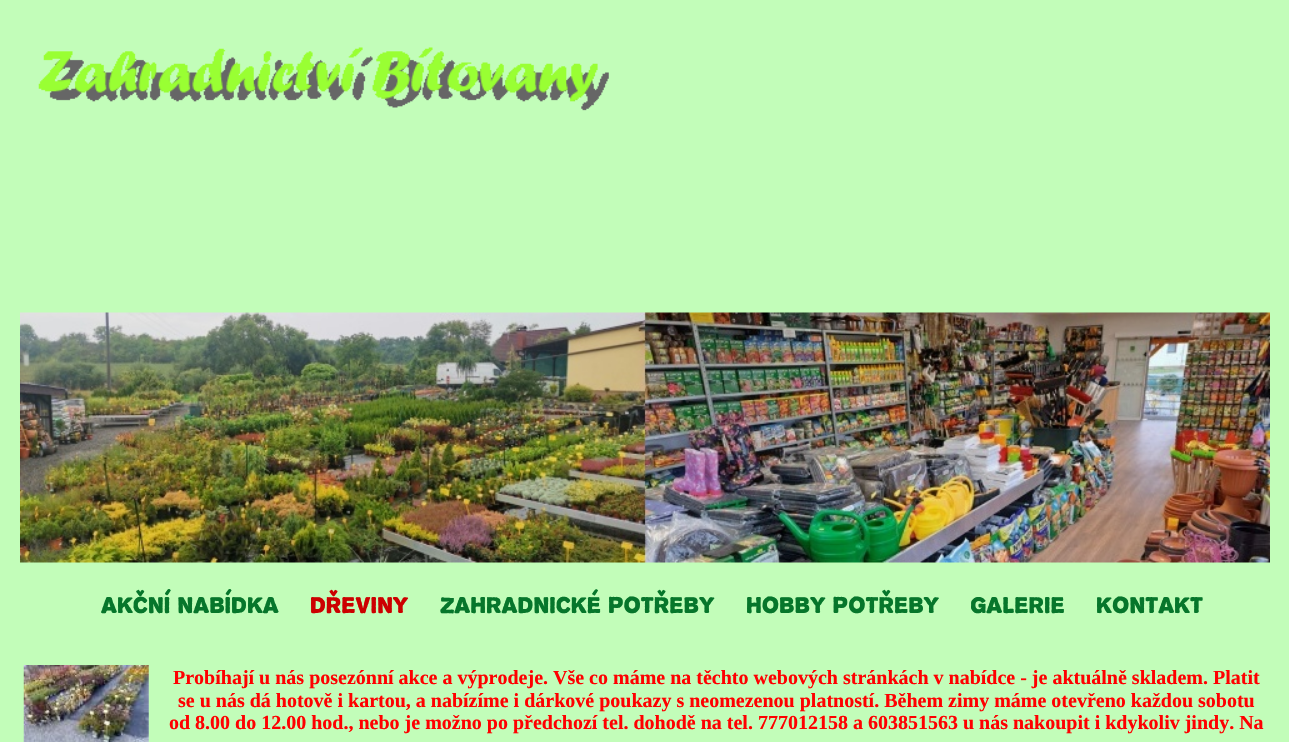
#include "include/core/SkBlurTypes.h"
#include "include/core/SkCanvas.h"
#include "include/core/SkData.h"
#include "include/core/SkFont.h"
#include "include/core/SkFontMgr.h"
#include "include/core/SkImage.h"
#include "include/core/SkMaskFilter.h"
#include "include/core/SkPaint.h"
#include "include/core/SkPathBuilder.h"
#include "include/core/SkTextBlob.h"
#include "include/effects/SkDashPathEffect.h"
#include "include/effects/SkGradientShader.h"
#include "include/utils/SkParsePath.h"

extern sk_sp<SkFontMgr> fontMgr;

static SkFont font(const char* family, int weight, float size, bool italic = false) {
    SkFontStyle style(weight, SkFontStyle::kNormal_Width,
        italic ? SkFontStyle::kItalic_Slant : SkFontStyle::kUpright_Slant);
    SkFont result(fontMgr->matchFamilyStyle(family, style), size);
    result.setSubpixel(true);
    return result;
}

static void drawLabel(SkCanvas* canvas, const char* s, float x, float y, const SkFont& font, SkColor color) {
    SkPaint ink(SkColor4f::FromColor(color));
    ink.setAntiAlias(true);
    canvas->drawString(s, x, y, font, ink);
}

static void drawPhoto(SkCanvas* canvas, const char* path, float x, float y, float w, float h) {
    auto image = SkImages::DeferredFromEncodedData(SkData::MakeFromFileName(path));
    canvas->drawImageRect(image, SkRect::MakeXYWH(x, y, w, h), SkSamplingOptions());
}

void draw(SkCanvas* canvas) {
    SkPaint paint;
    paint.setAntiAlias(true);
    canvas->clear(0xFFC2FDB9);
    drawPhoto(canvas, "assets/img1.png", 38, 47, 571, 64);
    drawPhoto(canvas, "assets/img2.png", 20, 312, 1250, 251);
    SkFont font1 = font("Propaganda", 400, 20);
    drawLabel(canvas, "AKČNÍ NABÍDKA", 101, 613, font1, 0xFF06762B);
    drawLabel(canvas, "DŘEVINY", 310, 613, font1, 0xFFCC0000);
    drawLabel(canvas, "ZAHRADNICKÉ POTŘEBY", 440, 613, font1, 0xFF06762B);
    drawLabel(canvas, "HOBBY POTŘEBY", 746, 613, font1, 0xFF06762B);
    drawLabel(canvas, "GALERIE", 970, 613, font1, 0xFF06762B);
    drawLabel(canvas, "KONTAKT", 1096, 613, font1, 0xFF06762B);
    drawPhoto(canvas, "assets/img3.png", 23, 665, 126, 77);
    SkFont font2 = font("Liberation Serif", 700, 20);
    drawLabel(canvas, "Probíhají u nás posezónní akce a výprodeje. Vše co máme na těchto webových stránkách v nabídce - je aktuálně skladem. Platit", 173, 684, font2, 0xFFFF0000);
    drawLabel(canvas, "se u nás dá hotově i kartou, a nabízíme i dárkové poukazy s neomezenou platností. Během zimy máme otevřeno každou sobotu", 178, 707, font2, 0xFFFF0000);
    drawLabel(canvas, "od 8.00 do 12.00 hod., nebo je možno po předchozí tel. dohodě na tel. 777012158 a 603851563 u nás nakoupit i kdykoliv jindy. Na", 169, 729, font2, 0xFFFF0000);
}
